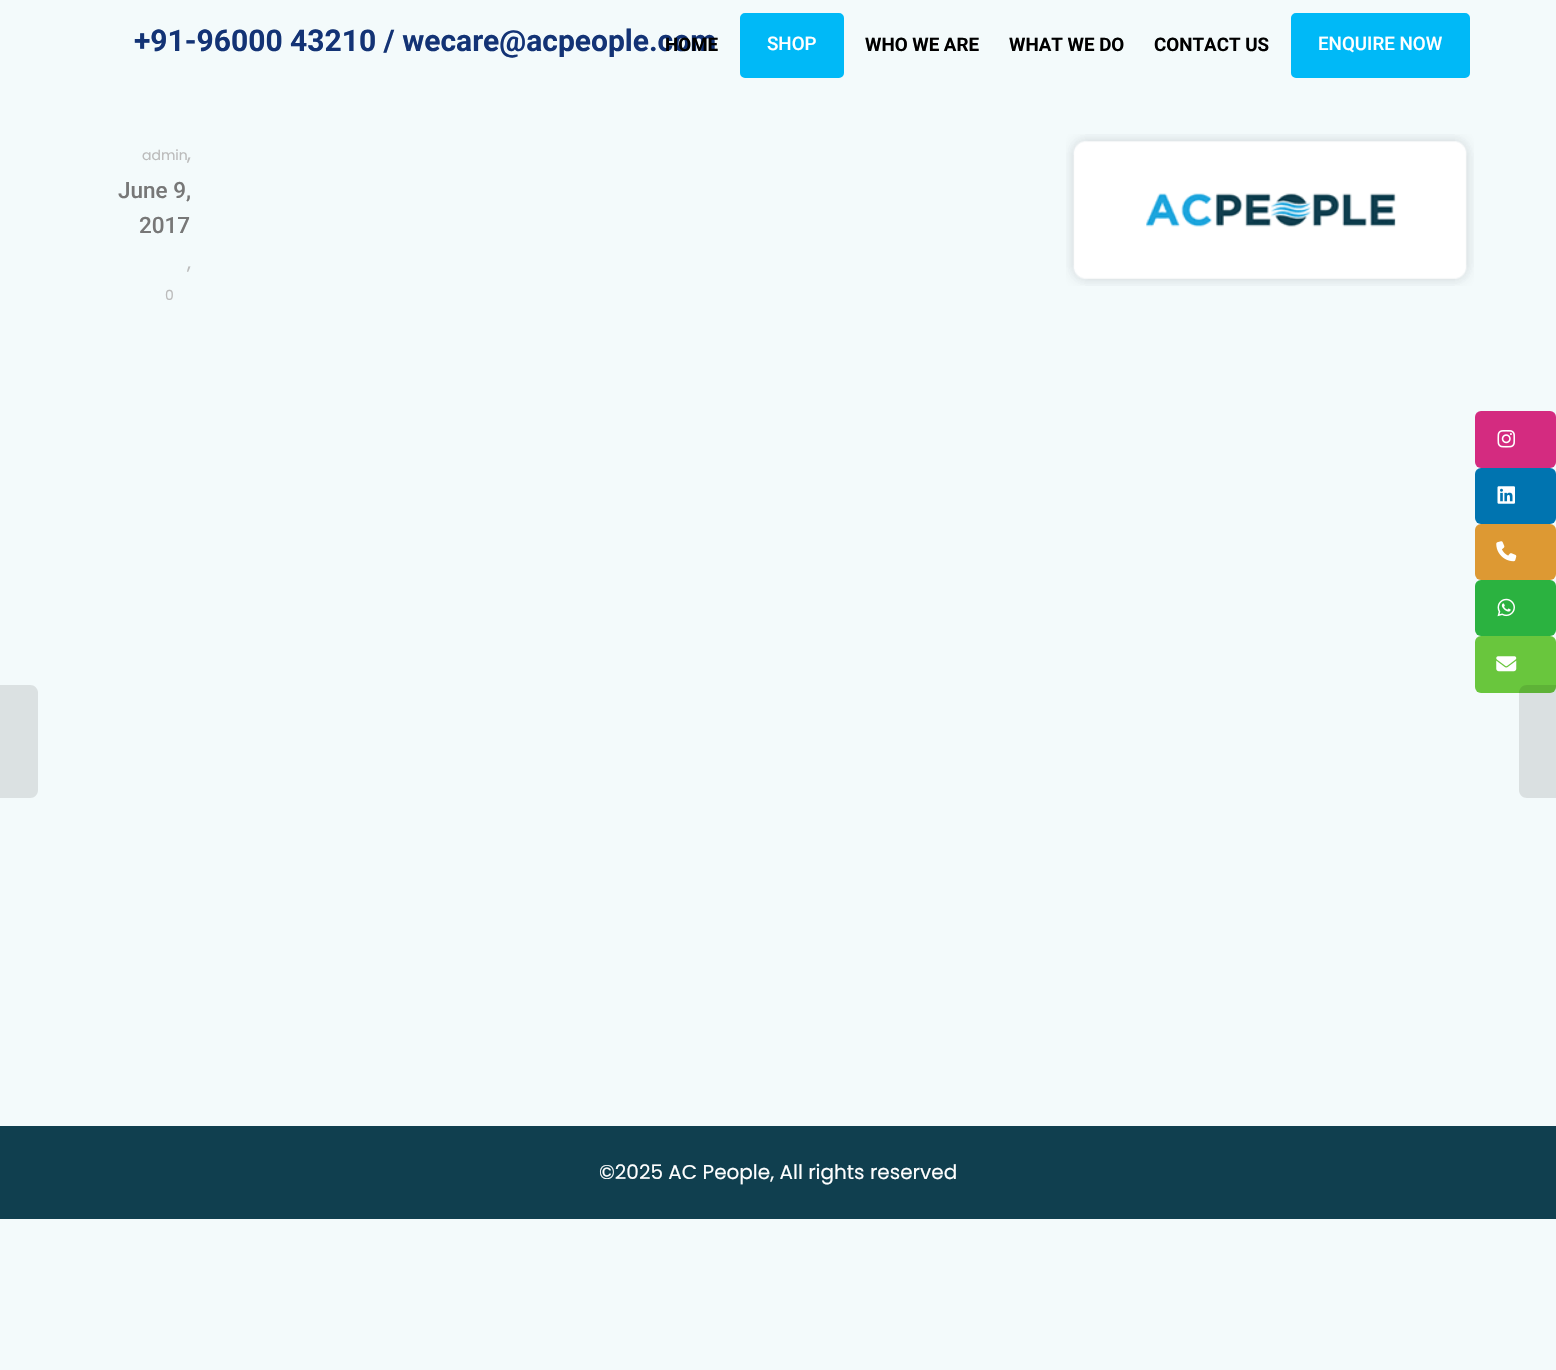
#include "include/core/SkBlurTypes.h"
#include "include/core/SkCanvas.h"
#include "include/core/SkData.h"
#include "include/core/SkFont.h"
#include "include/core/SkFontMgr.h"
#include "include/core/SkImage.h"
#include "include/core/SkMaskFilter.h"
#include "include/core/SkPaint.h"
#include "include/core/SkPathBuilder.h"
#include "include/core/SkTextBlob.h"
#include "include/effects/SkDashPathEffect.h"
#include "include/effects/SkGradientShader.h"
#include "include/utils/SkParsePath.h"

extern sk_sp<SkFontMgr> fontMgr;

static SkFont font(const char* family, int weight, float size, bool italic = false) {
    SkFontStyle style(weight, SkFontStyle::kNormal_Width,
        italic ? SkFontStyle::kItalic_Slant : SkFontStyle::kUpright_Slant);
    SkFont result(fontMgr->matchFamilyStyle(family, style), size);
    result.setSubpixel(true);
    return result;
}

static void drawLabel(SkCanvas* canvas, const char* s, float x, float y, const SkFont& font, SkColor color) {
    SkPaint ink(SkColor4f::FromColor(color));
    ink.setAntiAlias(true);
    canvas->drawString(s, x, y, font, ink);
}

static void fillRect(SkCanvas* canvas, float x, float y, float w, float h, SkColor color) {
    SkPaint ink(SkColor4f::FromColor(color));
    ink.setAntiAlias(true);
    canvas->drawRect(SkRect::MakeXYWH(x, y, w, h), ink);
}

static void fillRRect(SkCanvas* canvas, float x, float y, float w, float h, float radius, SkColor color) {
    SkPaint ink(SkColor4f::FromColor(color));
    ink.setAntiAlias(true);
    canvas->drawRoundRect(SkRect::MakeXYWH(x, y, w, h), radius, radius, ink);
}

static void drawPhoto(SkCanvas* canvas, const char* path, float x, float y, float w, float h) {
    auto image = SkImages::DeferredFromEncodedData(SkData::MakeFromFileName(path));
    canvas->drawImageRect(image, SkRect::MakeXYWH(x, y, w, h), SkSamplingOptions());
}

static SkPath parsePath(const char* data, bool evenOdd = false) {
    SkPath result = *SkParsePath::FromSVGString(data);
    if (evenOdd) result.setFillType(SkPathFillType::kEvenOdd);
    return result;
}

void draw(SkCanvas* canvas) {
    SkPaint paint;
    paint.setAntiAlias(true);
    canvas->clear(0xFFF3FAFB);
    SkFont font1 = font("Roboto", 700, 30);
    drawLabel(canvas, "+91-96000 43210 / wecare@acpeople.com", 134, 51, font1, 0xFF133375);
    SkFont font2 = font("Roboto", 700, 18.75f);
    drawLabel(canvas, "HOME", 665, 51, font2, 0xFF000000);
    paint.setColor(0xFF00B9F7);
    canvas->drawRoundRect(SkRect::MakeXYWH(741.5f, 14.5f, 101, 62), 3.5f, 3.5f, paint);
    paint.setStroke(true);
    paint.setStrokeWidth(3);
    canvas->drawRoundRect(SkRect::MakeXYWH(741.5f, 14.5f, 101, 62), 3.5f, 3.5f, paint);
    SkFont font3 = font("Roboto", 500, 18.75f);
    drawLabel(canvas, "SHOP", 767, 50, font3, 0xFFFFFFFF);
    drawLabel(canvas, "WHO WE ARE", 865, 51, font2, 0xFF000000);
    drawLabel(canvas, "WHAT WE DO", 1009, 51, font2, 0xFF000000);
    drawLabel(canvas, "CONTACT US", 1154, 51, font2, 0xFF000000);
    paint.setStroke(false);
    canvas->drawRoundRect(SkRect::MakeXYWH(1292.5f, 14.5f, 176, 62), 3.5f, 3.5f, paint);
    paint.setStroke(true);
    canvas->drawRoundRect(SkRect::MakeXYWH(1292.5f, 14.5f, 176, 62), 3.5f, 3.5f, paint);
    drawLabel(canvas, "ENQUIRE NOW", 1318, 50, font3, 0xFFFFFFFF);
    drawPhoto(canvas, "assets/img1.png", 1066, 134, 408, 152);
    SkFont font4 = font("Poppins", 400, 14);
    drawLabel(canvas, "admin", 142, 160, font4, 0xFFBBBBBB);
    SkFont font5 = font("Poppins", 400, 20);
    drawLabel(canvas, ",", 187, 160, font5, 0xFFBBBBBB);
    SkFont font6 = font("Roboto", 500, 22.5f);
    drawLabel(canvas, "June 9,", 118, 198, font6, 0xFF777777);
    drawLabel(canvas, "2017", 139, 233, font6, 0xFF777777);
    drawLabel(canvas, ",", 187, 269, font5, 0xFFBBBBBB);
    drawLabel(canvas, "0", 165, 300, font4, 0xFFBBBBBB);
    paint.setStroke(false);
    paint.setColor(0xFFDBE1E2);
    canvas->drawPath(parsePath("M-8 685H30C34.5 685 38 688.5 38 693V790C38 794.5 34.5 798 30 798H-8Z"), paint);
    fillRRect(canvas, 1475, 636, 81, 57, 6, 0xFF69C63D);
    paint.setColor(0x1A000000);
    canvas->drawPath(parsePath("M1527 685H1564V798H1527C1522.5 798 1519 794.5 1519 790V693C1519 688.5 1522.5 685 1527 685Z"), paint);
    fillRect(canvas, 0, 1126, 1556, 93, 0xFF103F4F);
    drawLabel(canvas, "©2025 AC People, All rights reserved", 599, 1179, font5, 0xFFFFFFFF);
    fillRRect(canvas, 1475, 411, 81, 57, 6, 0xFFD42B80);
    drawPhoto(canvas, "assets/img2.png", 1497, 430, 18, 18);
    fillRRect(canvas, 1475, 468, 81, 56, 6, 0xFF0074B0);
    drawPhoto(canvas, "assets/img3.png", 1497, 486, 18, 18);
    fillRRect(canvas, 1475, 524, 81, 56, 6, 0xFFDD9933);
    drawPhoto(canvas, "assets/img4.png", 1496, 541, 21, 21);
    fillRRect(canvas, 1475, 580, 81, 56, 6, 0xFF2BB240);
    drawPhoto(canvas, "assets/img5.png", 1497, 598, 18, 19);
    drawPhoto(canvas, "assets/img6.png", 1496, 656, 21, 16);
}
